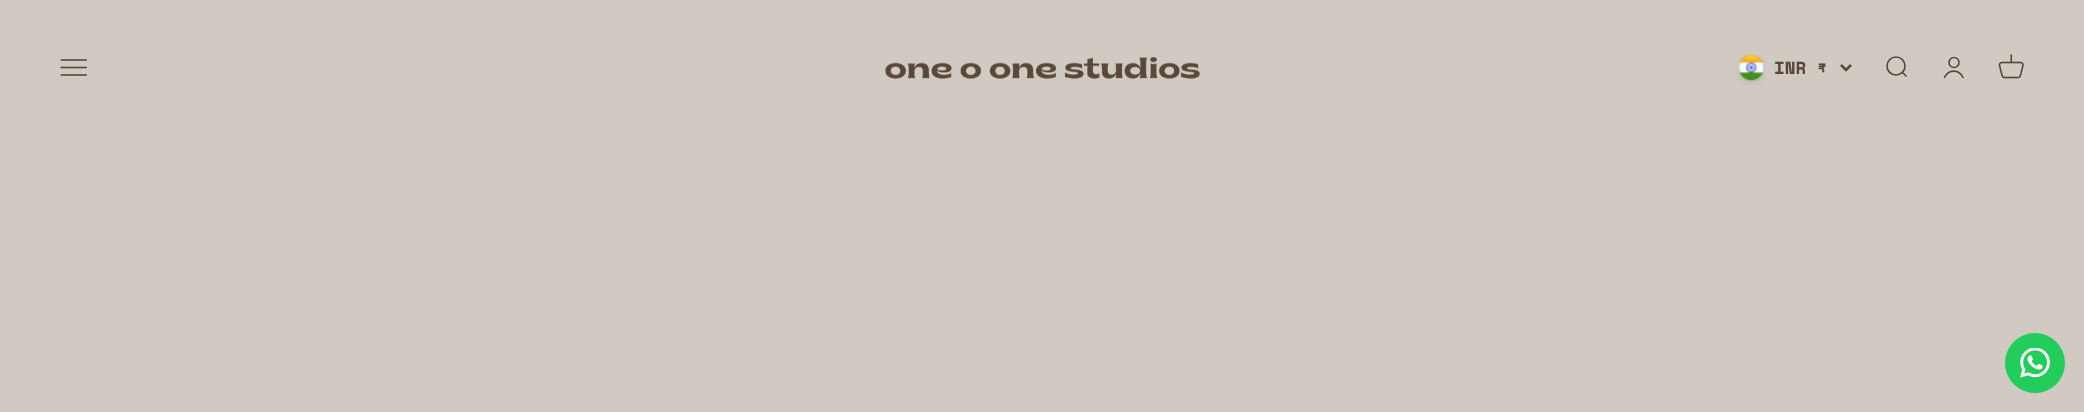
#include "include/core/SkBlurTypes.h"
#include "include/core/SkCanvas.h"
#include "include/core/SkData.h"
#include "include/core/SkFont.h"
#include "include/core/SkFontMgr.h"
#include "include/core/SkImage.h"
#include "include/core/SkMaskFilter.h"
#include "include/core/SkPaint.h"
#include "include/core/SkPathBuilder.h"
#include "include/core/SkTextBlob.h"
#include "include/effects/SkDashPathEffect.h"
#include "include/effects/SkGradientShader.h"
#include "include/utils/SkParsePath.h"

extern sk_sp<SkFontMgr> fontMgr;

static SkFont font(const char* family, int weight, float size, bool italic = false) {
    SkFontStyle style(weight, SkFontStyle::kNormal_Width,
        italic ? SkFontStyle::kItalic_Slant : SkFontStyle::kUpright_Slant);
    SkFont result(fontMgr->matchFamilyStyle(family, style), size);
    result.setSubpixel(true);
    return result;
}

static void drawLabel(SkCanvas* canvas, const char* s, float x, float y, const SkFont& font, SkColor color) {
    SkPaint ink(SkColor4f::FromColor(color));
    ink.setAntiAlias(true);
    canvas->drawString(s, x, y, font, ink);
}

static void drawPhoto(SkCanvas* canvas, const char* path, float x, float y, float w, float h) {
    auto image = SkImages::DeferredFromEncodedData(SkData::MakeFromFileName(path));
    canvas->drawImageRect(image, SkRect::MakeXYWH(x, y, w, h), SkSamplingOptions());
}

static SkPath parsePath(const char* data, bool evenOdd = false) {
    SkPath result = *SkParsePath::FromSVGString(data);
    if (evenOdd) result.setFillType(SkPathFillType::kEvenOdd);
    return result;
}

void draw(SkCanvas* canvas) {
    SkPaint paint;
    paint.setAntiAlias(true);
    canvas->clear(0xFFD0CAC2);
    drawPhoto(canvas, "assets/img1.png", 60, 59, 27, 17);
    drawPhoto(canvas, "assets/img2.png", 885, 57, 315, 22);
    drawPhoto(canvas, "assets/img3.png", 1736, 54, 30, 31);
    SkFont font1 = font("Space Mono", 700, 17.5f);
    drawLabel(canvas, "INR ₹", 1774, 74, font1, 0xFF594739);
    paint.setStroke(true);
    paint.setStrokeWidth(2.5f);
    paint.setColor(0xFF594739);
    canvas->drawPath(parsePath("M1841 65L1846 70L1851 65"), paint);
    paint.setStrokeWidth(1.6f);
    canvas->drawCircle(1896, 66, 9, paint);
    paint.setStrokeCap(SkPaint::kRound_Cap);
    paint.setStrokeJoin(SkPaint::kRound_Join);
    canvas->drawPath(parsePath("M1902.5 72.5L1906 76"), paint);
    paint.setStrokeCap(SkPaint::kButt_Cap);
    paint.setStrokeJoin(SkPaint::kMiter_Join);
    canvas->drawCircle(1954, 62.5f, 5, paint);
    paint.setStrokeCap(SkPaint::kRound_Cap);
    canvas->drawPath(parsePath("M1944.5 77.5C1948.5 69 1959 69 1963 77.5"), paint);
    drawPhoto(canvas, "assets/img4.png", 1998, 54, 26, 25);
    paint.setStroke(false);
    paint.setColor(0xFF22CD5B);
    canvas->drawCircle(2035, 363, 30, paint);
    drawPhoto(canvas, "assets/img5.png", 2020, 348, 30, 30);
}
